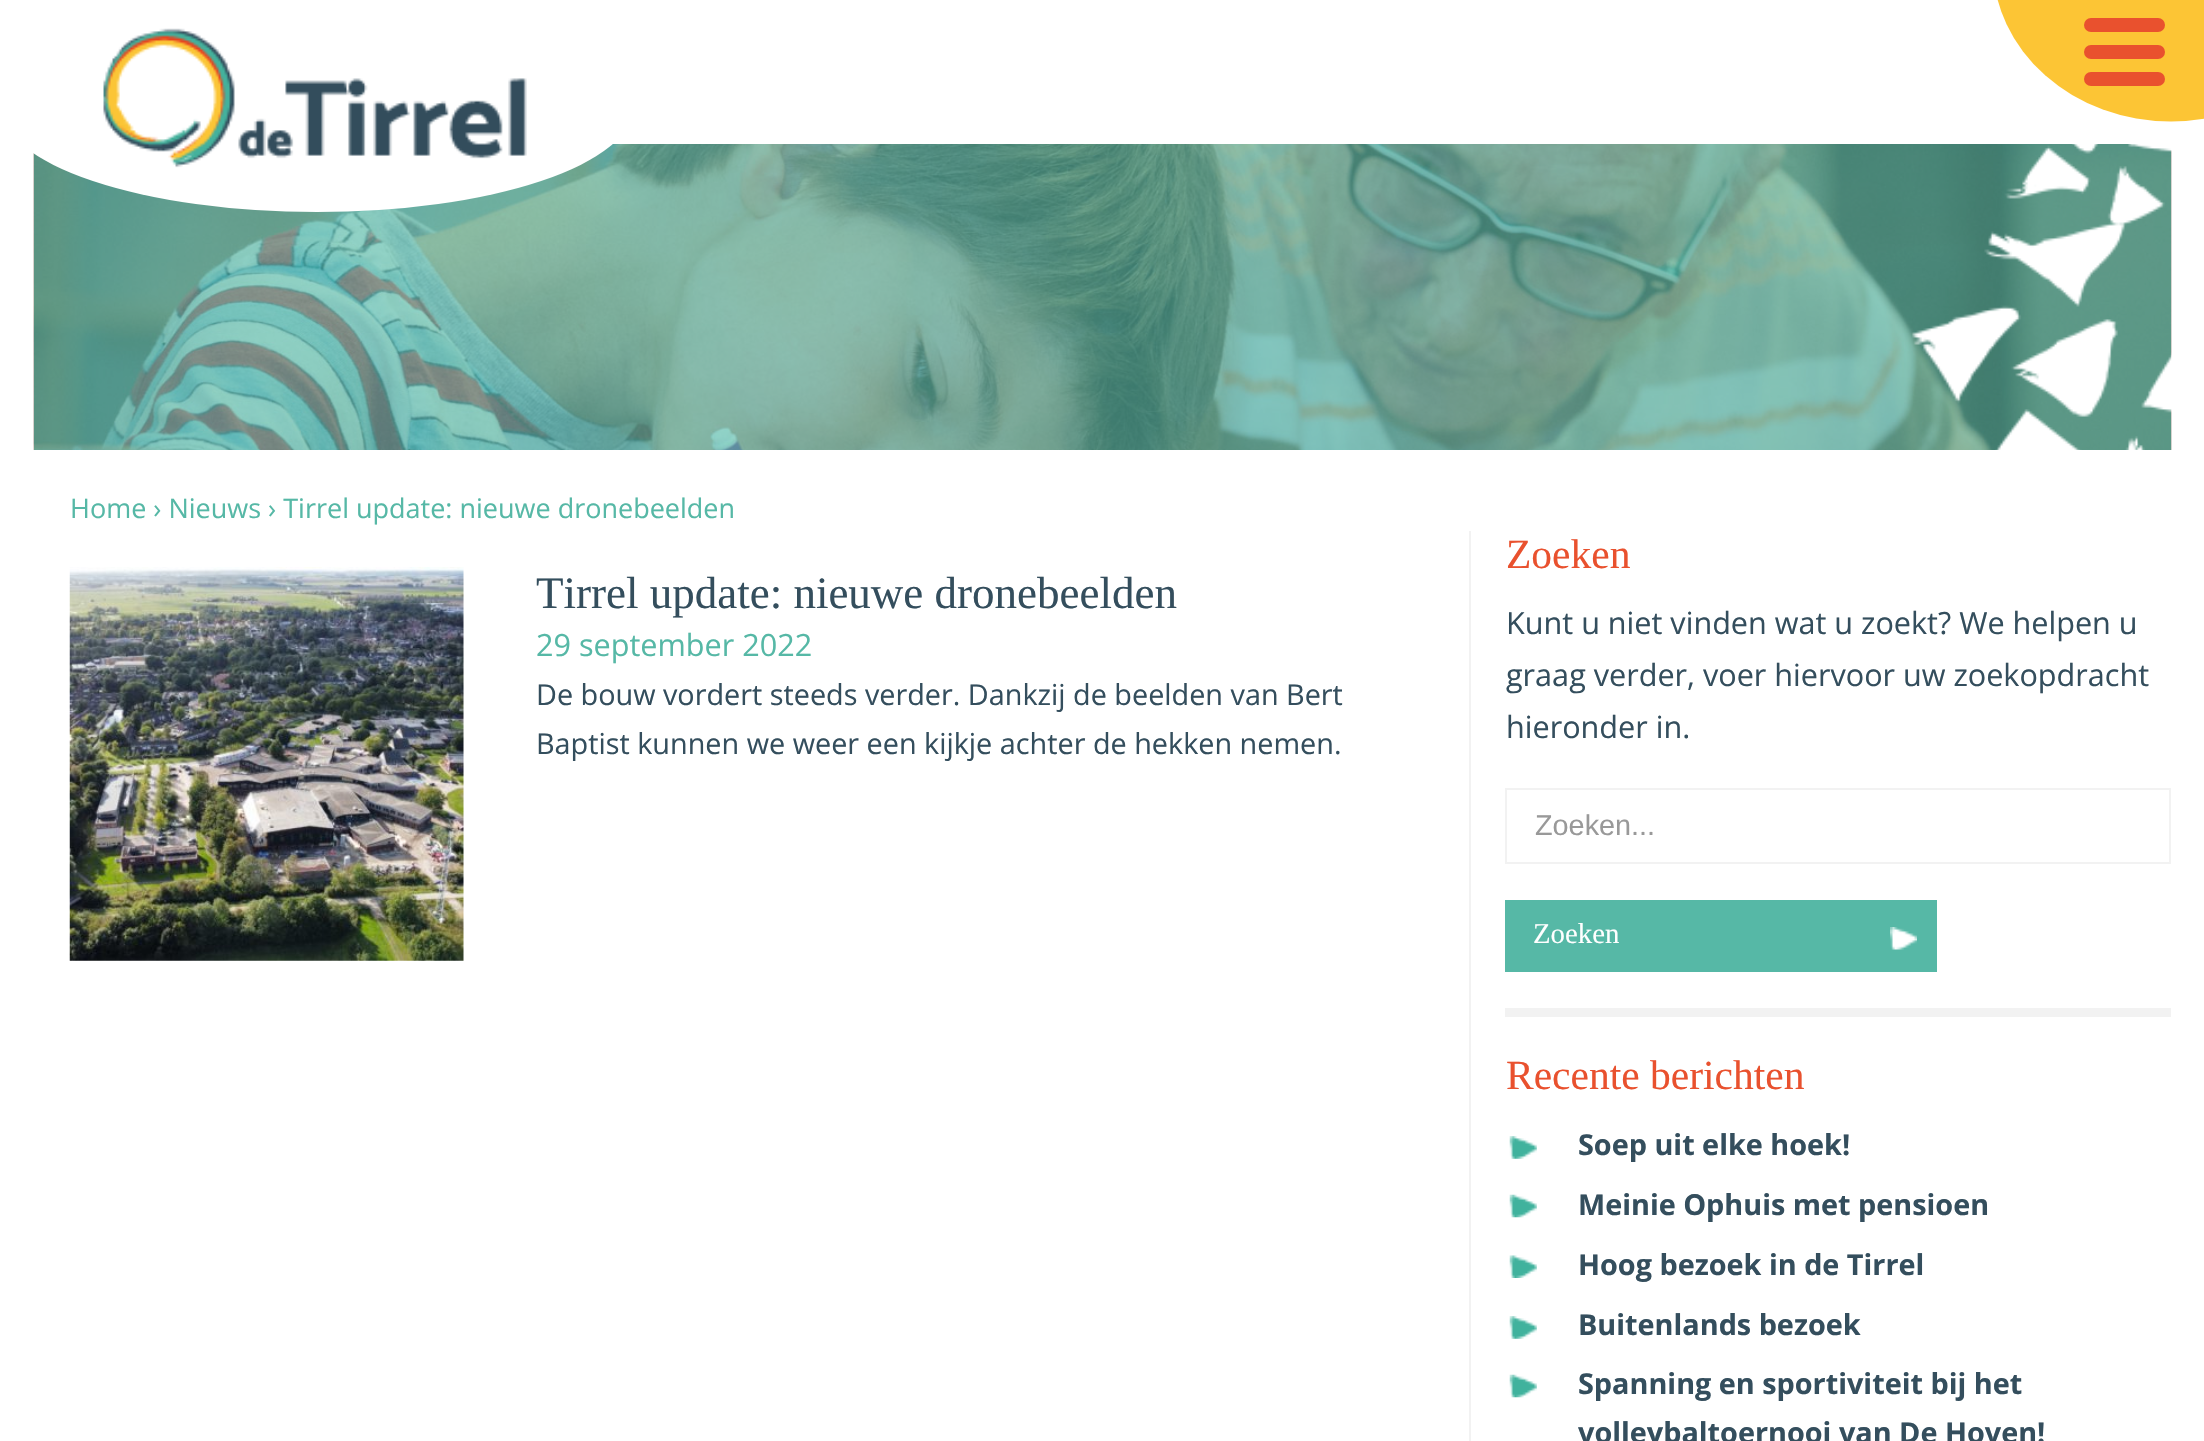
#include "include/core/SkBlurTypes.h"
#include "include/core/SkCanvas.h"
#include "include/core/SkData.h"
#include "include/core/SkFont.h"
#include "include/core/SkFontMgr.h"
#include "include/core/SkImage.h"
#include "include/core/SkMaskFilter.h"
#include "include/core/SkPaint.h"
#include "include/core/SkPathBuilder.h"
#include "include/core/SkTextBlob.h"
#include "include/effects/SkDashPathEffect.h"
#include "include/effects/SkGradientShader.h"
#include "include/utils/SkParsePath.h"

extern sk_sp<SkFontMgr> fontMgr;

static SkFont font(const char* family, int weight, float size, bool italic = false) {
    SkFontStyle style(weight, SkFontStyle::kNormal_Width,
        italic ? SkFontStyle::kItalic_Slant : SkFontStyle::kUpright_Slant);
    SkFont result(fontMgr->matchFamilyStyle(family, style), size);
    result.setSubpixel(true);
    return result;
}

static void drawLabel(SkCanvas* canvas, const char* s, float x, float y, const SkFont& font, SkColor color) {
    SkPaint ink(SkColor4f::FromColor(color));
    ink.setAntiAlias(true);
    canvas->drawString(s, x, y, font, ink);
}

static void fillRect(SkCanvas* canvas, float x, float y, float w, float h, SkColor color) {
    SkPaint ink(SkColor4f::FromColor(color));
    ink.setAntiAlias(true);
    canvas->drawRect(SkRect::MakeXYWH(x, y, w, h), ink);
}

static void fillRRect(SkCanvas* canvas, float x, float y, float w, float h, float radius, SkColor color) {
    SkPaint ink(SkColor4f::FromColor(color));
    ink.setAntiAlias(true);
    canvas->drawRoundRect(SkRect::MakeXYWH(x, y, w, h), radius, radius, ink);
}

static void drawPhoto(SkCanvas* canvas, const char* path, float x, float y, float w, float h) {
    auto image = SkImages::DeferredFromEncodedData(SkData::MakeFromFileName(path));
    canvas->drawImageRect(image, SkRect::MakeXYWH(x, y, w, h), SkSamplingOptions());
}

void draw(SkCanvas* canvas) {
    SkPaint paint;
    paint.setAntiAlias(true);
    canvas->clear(0xFFFFFFFF);
    drawPhoto(canvas, "assets/img2.png", 33, 144, 2139, 306);
    paint.setColor(0xFFFFFFFF);
    canvas->drawOval(SkRect::MakeXYWH(0, 0, 634, 212), paint);
    drawPhoto(canvas, "assets/img1.png", 103, 28, 424, 140);
    paint.setColor(0xFFFCC535);
    canvas->drawOval(SkRect::MakeXYWH(1993, -193.5f, 356, 315), paint);
    fillRRect(canvas, 2084, 18, 81, 14, 7, 0xFFE9512E);
    fillRRect(canvas, 2084, 45, 81, 14, 7, 0xFFE9512E);
    fillRRect(canvas, 2084, 72, 81, 14, 7, 0xFFE9512E);
    drawPhoto(canvas, "assets/img3.png", 1911, 144, 261, 306);
    SkFont font1 = font("Open Sans", 400, 27);
    drawLabel(canvas, "Home › Nieuws › Tirrel update: nieuwe dronebeelden", 70, 518, font1, 0xFF56B8A6);
    drawPhoto(canvas, "assets/img4.png", 69, 567, 395, 394);
    SkFont font2 = font("Liberation Serif", 400, 45);
    drawLabel(canvas, "Tirrel update: nieuwe dronebeelden", 536, 608, font2, 0xFF344E5D);
    SkFont font3 = font("Open Sans", 400, 30.6f);
    drawLabel(canvas, "29 september 2022", 536, 656, font3, 0xFF56B8A6);
    SkFont font4 = font("Open Sans", 400, 28.8f);
    drawLabel(canvas, "De bouw vordert steeds verder. Dankzij de beelden van Bert", 536, 705, font4, 0xFF344E5D);
    drawLabel(canvas, "Baptist kunnen we weer een kijkje achter de hekken nemen.", 536, 754, font4, 0xFF344E5D);
    fillRect(canvas, 1469, 531, 2, 910, 0xFFF2F2F2);
    fillRect(canvas, 1505, 1008, 666, 9, 0xFFF2F2F2);
    SkFont font5 = font("Liberation Serif", 400, 41.5f);
    drawLabel(canvas, "Zoeken", 1506, 568, font5, 0xFFE9512E);
    drawLabel(canvas, "Kunt u niet vinden wat u zoekt? We helpen u", 1506, 634, font3, 0xFF344E5D);
    drawLabel(canvas, "graag verder, voer hiervoor uw zoekopdracht", 1506, 686, font3, 0xFF344E5D);
    drawLabel(canvas, "hieronder in.", 1506, 738, font3, 0xFF344E5D);
    paint.setStroke(true);
    paint.setStrokeWidth(2);
    paint.setColor(0xFFF2F2F2);
    canvas->drawRect(SkRect::MakeXYWH(1506, 789, 664, 74), paint);
    SkFont font6 = font("Liberation Sans", 400, 28.8f);
    drawLabel(canvas, "Zoeken...", 1535, 835, font6, 0xFF999999);
    fillRect(canvas, 1505, 900, 432, 72, 0xFF56B8A6);
    drawPhoto(canvas, "assets/img5.png", 1890, 927, 27, 23);
    SkFont font7 = font("Liberation Serif", 400, 28.8f);
    drawLabel(canvas, "Zoeken", 1533, 943, font7, 0xFFFFFFFF);
    drawLabel(canvas, "Recente berichten", 1506, 1089, font5, 0xFFE9512E);
    drawPhoto(canvas, "assets/img6.png", 1509, 1136, 28, 23);
    SkFont font8 = font("Open Sans", 700, 28.8f);
    drawLabel(canvas, "Soep uit elke hoek!", 1578, 1155, font8, 0xFF344E5D);
    drawPhoto(canvas, "assets/img7.png", 1509, 1194, 28, 24);
    drawLabel(canvas, "Meinie Ophuis met pensioen", 1578, 1215, font8, 0xFF344E5D);
    drawPhoto(canvas, "assets/img8.png", 1509, 1255, 28, 23);
    drawLabel(canvas, "Hoog bezoek in de Tirrel", 1578, 1275, font8, 0xFF344E5D);
    drawPhoto(canvas, "assets/img6.png", 1509, 1316, 28, 23);
    drawLabel(canvas, "Buitenlands bezoek", 1578, 1335, font8, 0xFF344E5D);
    drawPhoto(canvas, "assets/img7.png", 1509, 1374, 28, 24);
    drawLabel(canvas, "Spanning en sportiviteit bij het", 1578, 1394, font8, 0xFF344E5D);
    drawLabel(canvas, "volleybaltoernooi van De Hoven!", 1578, 1443, font8, 0xFF344E5D);
}
